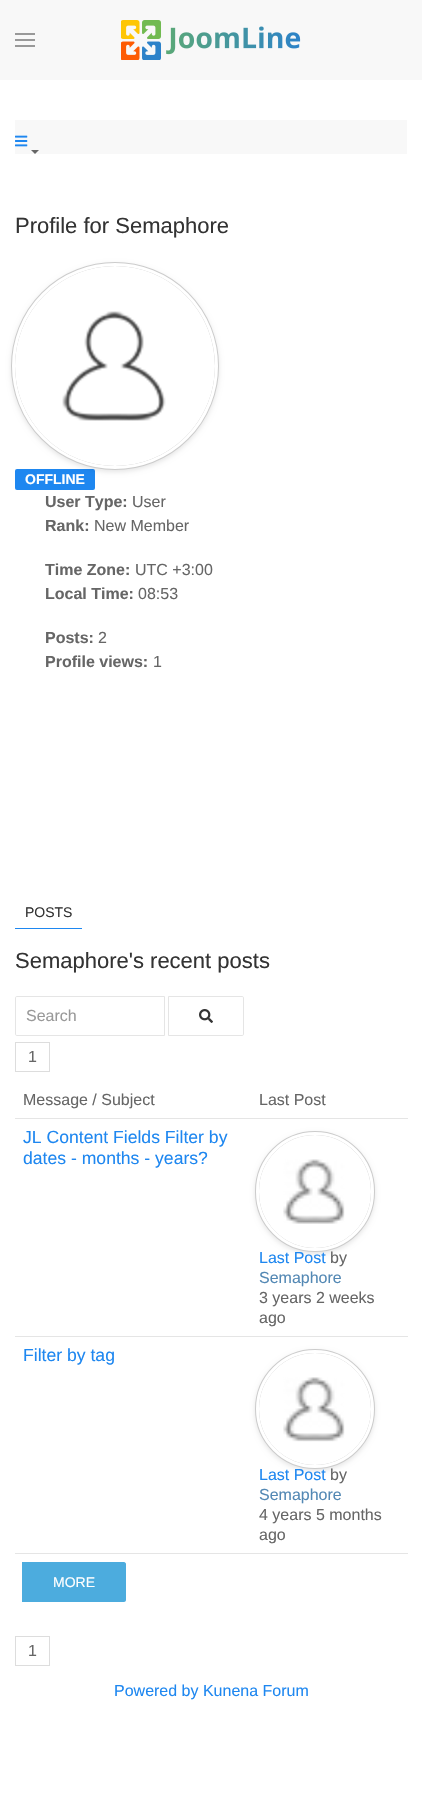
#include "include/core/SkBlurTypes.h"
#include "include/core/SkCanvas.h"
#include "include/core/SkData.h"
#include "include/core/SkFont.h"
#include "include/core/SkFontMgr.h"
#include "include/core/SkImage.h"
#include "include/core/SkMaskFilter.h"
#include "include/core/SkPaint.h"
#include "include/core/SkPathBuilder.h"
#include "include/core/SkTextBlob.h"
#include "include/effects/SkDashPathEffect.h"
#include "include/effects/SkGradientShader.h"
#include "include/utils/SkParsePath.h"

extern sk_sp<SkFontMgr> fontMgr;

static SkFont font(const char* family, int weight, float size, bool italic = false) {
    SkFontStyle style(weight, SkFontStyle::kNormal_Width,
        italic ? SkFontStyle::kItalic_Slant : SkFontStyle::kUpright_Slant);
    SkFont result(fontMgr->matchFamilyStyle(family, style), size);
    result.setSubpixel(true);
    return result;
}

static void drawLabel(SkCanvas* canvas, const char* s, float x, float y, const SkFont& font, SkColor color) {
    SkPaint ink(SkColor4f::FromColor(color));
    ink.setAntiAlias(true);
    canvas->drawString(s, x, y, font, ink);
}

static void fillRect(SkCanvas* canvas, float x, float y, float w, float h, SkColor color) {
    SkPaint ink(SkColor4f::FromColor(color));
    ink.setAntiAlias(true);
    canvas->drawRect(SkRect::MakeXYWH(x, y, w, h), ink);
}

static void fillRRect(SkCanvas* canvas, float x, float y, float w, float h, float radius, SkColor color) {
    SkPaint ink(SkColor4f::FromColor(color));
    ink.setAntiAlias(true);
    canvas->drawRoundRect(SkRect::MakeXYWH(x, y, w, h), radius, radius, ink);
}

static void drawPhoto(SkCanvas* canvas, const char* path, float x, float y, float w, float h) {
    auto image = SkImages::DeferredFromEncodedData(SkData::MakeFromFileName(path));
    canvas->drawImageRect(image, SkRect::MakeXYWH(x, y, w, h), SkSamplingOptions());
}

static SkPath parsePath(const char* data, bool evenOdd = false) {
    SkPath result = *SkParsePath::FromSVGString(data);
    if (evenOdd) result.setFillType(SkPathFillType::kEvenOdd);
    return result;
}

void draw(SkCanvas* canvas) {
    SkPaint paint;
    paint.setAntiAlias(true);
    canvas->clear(0xFFFFFFFF);
    fillRect(canvas, 0, 0, 422, 80, 0xFFF8F8F8);
    fillRect(canvas, 15, 33, 20, 2, 0xFF999999);
    fillRect(canvas, 15, 39, 20, 2, 0xFF999999);
    fillRect(canvas, 15, 45, 20, 2, 0xFF999999);
    drawPhoto(canvas, "assets/img1.png", 121, 20, 180, 40);
    fillRect(canvas, 15, 120, 392, 34, 0xFFF8F8F8);
    drawPhoto(canvas, "assets/img2.png", 15, 135, 13, 12);
    paint.setColor(0xFF666666);
    canvas->drawPath(parsePath("M31 150H39L35 154Z"), paint);
    SkFont font1 = font("Liberation Sans", 400, 22);
    drawLabel(canvas, "Profile for Semaphore", 15, 233, font1, 0xFF333333);
    fillRRect(canvas, 15, 469, 80, 21, 2, 0xFF1E87F0);
    canvas->save();
    canvas->clipPath(parsePath("M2 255H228V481H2ZM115 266C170 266 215 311 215 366C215 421 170 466 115 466C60 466 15 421 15 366C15 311 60 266 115 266Z", true), true);
    paint.setColor(0x1A000000);
    paint.setMaskFilter(SkMaskFilter::MakeBlur(kNormal_SkBlurStyle, 2.5f));
    canvas->drawRoundRect(SkRect::MakeXYWH(11, 264, 208, 208), 104, 104, paint);
    paint.setMaskFilter(nullptr);
    canvas->restore();
    paint.setStroke(true);
    paint.setStrokeWidth(4);
    paint.setColor(0xFFCCCCCC);
    canvas->drawCircle(115, 366, 102, paint);
    paint.setStrokeWidth(3);
    paint.setColor(0xFFFFFFFF);
    canvas->drawCircle(115, 366, 101.5f, paint);
    drawPhoto(canvas, "assets/img3.png", 62, 311, 104, 110);
    SkFont font2 = font("Liberation Sans", 700, 14);
    drawLabel(canvas, "OFFLINE", 25, 484, font2, 0xFFFFFFFF);
    SkFont font3 = font("Liberation Sans", 700, 16);
    drawLabel(canvas, "User Type:", 45, 507, font3, 0xFF666666);
    SkFont font4 = font("Liberation Sans", 400, 16);
    drawLabel(canvas, "User", 132, 507, font4, 0xFF666666);
    drawLabel(canvas, "Rank:", 45, 531, font3, 0xFF666666);
    drawLabel(canvas, "New Member", 94, 531, font4, 0xFF666666);
    drawLabel(canvas, "Time Zone:", 45, 575, font3, 0xFF666666);
    drawLabel(canvas, "UTC +3:00", 135, 575, font4, 0xFF666666);
    drawLabel(canvas, "Local Time:", 45, 599, font3, 0xFF666666);
    drawLabel(canvas, "08:53", 138, 599, font4, 0xFF666666);
    drawLabel(canvas, "Posts:", 45, 643, font3, 0xFF666666);
    drawLabel(canvas, "2", 98, 643, font4, 0xFF666666);
    drawLabel(canvas, "Profile views:", 45, 667, font3, 0xFF666666);
    drawLabel(canvas, "1", 153, 667, font4, 0xFF666666);
    fillRect(canvas, 15, 928, 67, 1, 0xFF1E87F0);
    SkFont font5 = font("Liberation Sans", 400, 14);
    drawLabel(canvas, "POSTS", 25, 917, font5, 0xFF333333);
    drawLabel(canvas, "Semaphore's recent posts", 15, 968, font1, 0xFF333333);
    paint.setStrokeWidth(1);
    paint.setColor(0xFFE5E5E5);
    canvas->drawPath(parsePath("M17 996.5H164.5V1035.5H17C16 1035.5 15.5 1035 15.5 1034V998C15.5 997 16 996.5 17 996.5Z"), paint);
    drawLabel(canvas, "Search", 26, 1021, font4, 0xFF999999);
    canvas->drawPath(parsePath("M168.5 996.5H242C243 996.5 243.5 997 243.5 998V1034C243.5 1035 243 1035.5 242 1035.5H168.5Z"), paint);
    drawPhoto(canvas, "assets/img4.png", 199, 1009, 14, 14);
    paint.setColor(0xFFDDDDDD);
    canvas->drawRect(SkRect::MakeXYWH(15.5f, 1042.5f, 34, 29), paint);
    drawLabel(canvas, "1", 28, 1062, font4, 0xFF666666);
    drawLabel(canvas, "Message / Subject", 23, 1105, font4, 0xFF666666);
    drawLabel(canvas, "Last Post", 259, 1105, font4, 0xFF666666);
    SkFont font6 = font("Liberation Sans", 400, 17.6f);
    drawLabel(canvas, "JL Content Fields Filter by", 23, 1143, font6, 0xFF1E87F0);
    drawLabel(canvas, "dates - months - years?", 23, 1164, font6, 0xFF1E87F0);
    fillRect(canvas, 15, 1118, 393, 1, 0xFFE5E5E5);
    canvas->save();
    canvas->clipPath(parsePath("M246 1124H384V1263H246ZM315 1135C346 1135 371 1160 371 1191V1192C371 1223 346 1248 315 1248C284 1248 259 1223 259 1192V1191C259 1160 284 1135 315 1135Z", true), true);
    paint.setStroke(false);
    paint.setColor(0x1A000000);
    paint.setMaskFilter(SkMaskFilter::MakeBlur(kNormal_SkBlurStyle, 2.5f));
    canvas->drawRoundRect(SkRect::MakeXYWH(255, 1133, 120, 121), 60, 60, paint);
    paint.setMaskFilter(nullptr);
    canvas->restore();
    drawLabel(canvas, "by", 330, 1263, font4, 0xFF666666);
    paint.setStroke(true);
    paint.setStrokeWidth(4);
    paint.setColor(0xFFCCCCCC);
    canvas->drawRoundRect(SkRect::MakeXYWH(257, 1133, 116, 117), 58, 58, paint);
    paint.setStrokeWidth(3);
    paint.setColor(0xFFFFFFFF);
    canvas->drawRoundRect(SkRect::MakeXYWH(257.5f, 1133.5f, 115, 116), 57.5f, 57.5f, paint);
    drawPhoto(canvas, "assets/img5.png", 283, 1159, 62, 65);
    drawLabel(canvas, "Last Post", 259, 1263, font4, 0xFF1E87F0);
    drawLabel(canvas, "Semaphore", 259, 1283, font4, 0xFF5388B4);
    drawLabel(canvas, "3 years 2 weeks", 259, 1303, font4, 0xFF666666);
    drawLabel(canvas, "ago", 259, 1323, font4, 0xFF666666);
    drawLabel(canvas, "Filter by tag", 23, 1361, font6, 0xFF1E87F0);
    fillRect(canvas, 15, 1336, 393, 1, 0xFFE5E5E5);
    canvas->save();
    canvas->clipPath(parsePath("M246 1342H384V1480H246ZM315 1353C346 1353 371 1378 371 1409C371 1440 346 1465 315 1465C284 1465 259 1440 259 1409C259 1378 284 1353 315 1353Z", true), true);
    paint.setStroke(false);
    paint.setColor(0x1A000000);
    paint.setMaskFilter(SkMaskFilter::MakeBlur(kNormal_SkBlurStyle, 2.5f));
    canvas->drawRoundRect(SkRect::MakeXYWH(255, 1351, 120, 120), 60, 60, paint);
    paint.setMaskFilter(nullptr);
    canvas->restore();
    drawLabel(canvas, "by", 330, 1480, font4, 0xFF666666);
    paint.setStroke(true);
    paint.setStrokeWidth(4);
    paint.setColor(0xFFCCCCCC);
    canvas->drawCircle(315, 1409, 58, paint);
    paint.setStrokeWidth(3);
    paint.setColor(0xFFFFFFFF);
    canvas->drawCircle(315, 1409, 57.5f, paint);
    drawPhoto(canvas, "assets/img6.png", 283, 1377, 62, 65);
    drawLabel(canvas, "Last Post", 259, 1480, font4, 0xFF1E87F0);
    drawLabel(canvas, "Semaphore", 259, 1500, font4, 0xFF5388B4);
    drawLabel(canvas, "4 years 5 months", 259, 1520, font4, 0xFF666666);
    drawLabel(canvas, "ago", 259, 1540, font4, 0xFF666666);
    fillRect(canvas, 15, 1553, 393, 1, 0xFFE5E5E5);
    paint.setStroke(false);
    paint.setColor(0xFF4CACDE);
    canvas->drawPath(parsePath("M22 1562H124C125 1562 126 1563 126 1564V1600C126 1601 125 1602 124 1602H22Z"), paint);
    drawLabel(canvas, "MORE", 53, 1587, font5, 0xFFFFFFFF);
    paint.setStroke(true);
    paint.setStrokeWidth(1);
    paint.setColor(0xFFDDDDDD);
    canvas->drawRect(SkRect::MakeXYWH(15.5f, 1636.5f, 34, 29), paint);
    drawLabel(canvas, "1", 28, 1656, font4, 0xFF666666);
    drawLabel(canvas, "Powered by Kunena Forum", 114, 1696, font4, 0xFF1E87F0);
}
